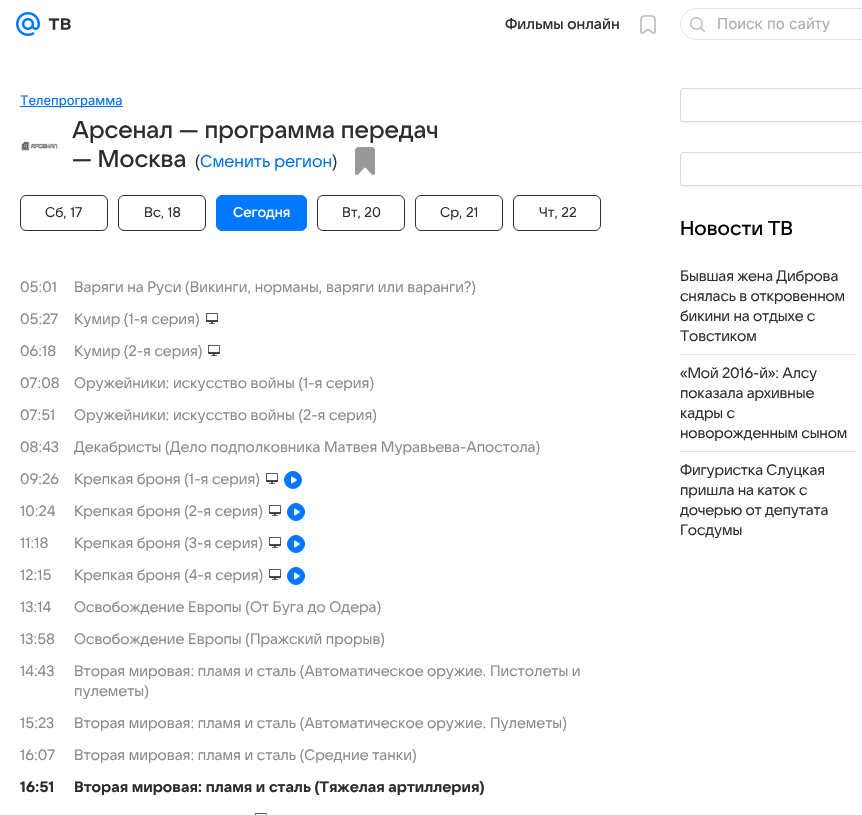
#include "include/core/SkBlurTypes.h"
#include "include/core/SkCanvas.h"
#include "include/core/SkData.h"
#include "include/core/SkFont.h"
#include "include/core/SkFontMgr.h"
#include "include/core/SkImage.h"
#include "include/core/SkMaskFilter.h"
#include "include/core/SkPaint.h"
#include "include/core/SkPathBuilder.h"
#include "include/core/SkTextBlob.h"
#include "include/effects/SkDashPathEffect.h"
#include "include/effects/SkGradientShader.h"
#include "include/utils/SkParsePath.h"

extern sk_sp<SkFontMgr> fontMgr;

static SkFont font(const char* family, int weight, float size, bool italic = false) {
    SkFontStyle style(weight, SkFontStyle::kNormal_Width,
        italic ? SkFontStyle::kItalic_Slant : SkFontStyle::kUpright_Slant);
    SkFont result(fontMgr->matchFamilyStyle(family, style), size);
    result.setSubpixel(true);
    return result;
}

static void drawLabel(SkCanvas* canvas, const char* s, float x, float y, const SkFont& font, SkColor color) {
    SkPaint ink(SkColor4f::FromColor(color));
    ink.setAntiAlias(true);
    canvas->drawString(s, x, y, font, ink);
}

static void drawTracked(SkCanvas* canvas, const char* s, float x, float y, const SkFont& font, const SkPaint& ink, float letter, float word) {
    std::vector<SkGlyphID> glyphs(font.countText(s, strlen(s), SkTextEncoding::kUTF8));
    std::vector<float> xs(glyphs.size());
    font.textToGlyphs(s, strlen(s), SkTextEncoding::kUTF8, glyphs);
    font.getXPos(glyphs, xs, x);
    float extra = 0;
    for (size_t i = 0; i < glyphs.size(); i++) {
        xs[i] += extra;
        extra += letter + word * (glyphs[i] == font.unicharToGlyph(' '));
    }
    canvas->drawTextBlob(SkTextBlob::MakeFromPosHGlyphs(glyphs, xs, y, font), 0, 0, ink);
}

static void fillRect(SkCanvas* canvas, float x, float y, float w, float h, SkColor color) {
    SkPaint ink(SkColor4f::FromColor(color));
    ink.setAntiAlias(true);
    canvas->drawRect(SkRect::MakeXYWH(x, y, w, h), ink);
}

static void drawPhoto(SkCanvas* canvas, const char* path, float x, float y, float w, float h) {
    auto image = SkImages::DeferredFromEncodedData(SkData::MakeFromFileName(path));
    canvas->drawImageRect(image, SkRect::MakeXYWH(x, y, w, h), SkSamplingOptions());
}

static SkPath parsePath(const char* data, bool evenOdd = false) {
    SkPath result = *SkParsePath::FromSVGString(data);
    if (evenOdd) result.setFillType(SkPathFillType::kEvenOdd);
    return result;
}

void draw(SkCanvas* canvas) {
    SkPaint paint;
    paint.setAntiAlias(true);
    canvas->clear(0xFFFFFFFF);
    drawPhoto(canvas, "assets/img1.png", 16, 12, 24, 24);
    drawPhoto(canvas, "assets/img2.png", 48, 18, 23, 12);
    SkFont font1 = font("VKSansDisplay", 500, 15);
    drawLabel(canvas, "Фильмы онлайн", 505, 29, font1, 0xFF2C2D2E);
    drawPhoto(canvas, "assets/img3.png", 640, 15, 16, 19);
    paint.setStroke(true);
    paint.setStrokeWidth(1);
    paint.setColor(0xFFE0E2E8);
    canvas->drawRoundRect(SkRect::MakeXYWH(680.5f, 8.5f, 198, 31), 15.5f, 15.5f, paint);
    drawPhoto(canvas, "assets/img4.png", 690, 17, 15, 15);
    SkFont font2 = font("Inter", 400, 15);
    drawLabel(canvas, "Поиск по сайту", 717, 29, font2, 0xFFAAADB3);
    fillRect(canvas, 20, 106, 103, 1, 0xFF0070F0);
    SkFont font3 = font("Inter", 400, 13);
    drawLabel(canvas, "Телепрограмма", 20, 105, font3, 0xFF0070F0);
    drawPhoto(canvas, "assets/img5.png", 21, 141, 37, 10);
    SkFont font4 = font("VKSansDisplay", 500, 24);
    drawLabel(canvas, "Арсенал — программа передач", 72, 138, font4, 0xFF2C2D2E);
    drawLabel(canvas, "— Москва", 72, 167, font4, 0xFF2C2D2E);
    SkFont font5 = font("VKSansDisplay", 400, 17);
    drawLabel(canvas, "(", 195, 167, font5, 0xFF2C2D2E);
    drawLabel(canvas, "Сменить регион", 200, 167, font5, 0xFF0070F0);
    drawLabel(canvas, ")", 332, 167, font5, 0xFF2C2D2E);
    drawPhoto(canvas, "assets/img6.png", 355, 147, 20, 28);
    paint.setColor(0xFF2C2D2E);
    canvas->drawRoundRect(SkRect::MakeXYWH(20.5f, 195.5f, 87, 35), 5.5f, 5.5f, paint);
    SkFont font6 = font("VKSansDisplay", 400, 14);
    drawLabel(canvas, "Сб, 17", 45, 217, font6, 0xFF2C2D2E);
    canvas->drawRoundRect(SkRect::MakeXYWH(118.5f, 195.5f, 87, 35), 5.5f, 5.5f, paint);
    drawLabel(canvas, "Вс, 18", 144, 217, font6, 0xFF2C2D2E);
    paint.setStroke(false);
    paint.setColor(0xFF0077FF);
    canvas->drawRoundRect(SkRect::MakeXYWH(216.5f, 195.5f, 90, 35), 5.5f, 5.5f, paint);
    paint.setStroke(true);
    canvas->drawRoundRect(SkRect::MakeXYWH(216.5f, 195.5f, 90, 35), 5.5f, 5.5f, paint);
    SkFont font7 = font("VKSansDisplay", 500, 14);
    drawLabel(canvas, "Сегодня", 233, 217, font7, 0xFFFFFFFF);
    paint.setColor(0xFF2C2D2E);
    canvas->drawRoundRect(SkRect::MakeXYWH(317.5f, 195.5f, 87, 35), 5.5f, 5.5f, paint);
    drawLabel(canvas, "Вт, 20", 342, 217, font6, 0xFF2C2D2E);
    canvas->drawRoundRect(SkRect::MakeXYWH(415.5f, 195.5f, 87, 35), 5.5f, 5.5f, paint);
    drawLabel(canvas, "Ср, 21", 440, 217, font6, 0xFF2C2D2E);
    canvas->drawRoundRect(SkRect::MakeXYWH(513.5f, 195.5f, 87, 35), 5.5f, 5.5f, paint);
    drawLabel(canvas, "Чт, 22", 539, 217, font6, 0xFF2C2D2E);
    paint.setStroke(false);
    paint.setColor(0xFFF5F5F5);
    canvas->drawPath(parsePath("M680 119V121C680 123 681 124 683 124H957C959 124 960 123 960 121V119C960 121 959 122 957 122H683C681 122 680 121 680 119Z"), paint);
    paint.setStroke(true);
    paint.setColor(0xFFDAD9D9);
    canvas->drawRoundRect(SkRect::MakeXYWH(680.5f, 88.5f, 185, 33), 2.5f, 2.5f, paint);
    paint.setStroke(false);
    paint.setColor(0xFFF5F5F5);
    canvas->drawPath(parsePath("M680 183V185C680 187 681 188 683 188H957C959 188 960 187 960 185V183C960 185 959 186 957 186H683C681 186 680 185 680 183Z"), paint);
    paint.setStroke(true);
    paint.setColor(0xFFDAD9D9);
    canvas->drawRoundRect(SkRect::MakeXYWH(680.5f, 152.5f, 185, 33), 2.5f, 2.5f, paint);
    SkFont font8 = font("VKSansDisplay", 500, 20);
    drawLabel(canvas, "Новости ТВ", 680, 235, font8, 0xFF000000);
    SkFont font9 = font("VKSansDisplay", 400, 15);
    paint.setStroke(false);
    paint.setColor(0xFF2C2D2E);
    drawTracked(canvas, "Бывшая жена Диброва", 680, 281, font9, paint, -0.15f, 0);
    drawTracked(canvas, "снялась в откровенном", 680, 301, font9, paint, -0.15f, 0);
    drawTracked(canvas, "бикини на отдыхе с", 680, 321, font9, paint, -0.15f, 0);
    drawTracked(canvas, "Товстиком", 680, 341, font9, paint, -0.15f, 0);
    fillRect(canvas, 680, 354, 176, 1, 0xFFE0E2E8);
    drawTracked(canvas, "«Мой 2016-й»: Алсу", 680, 378, font9, paint, -0.15f, 0);
    drawTracked(canvas, "показала архивные", 680, 398, font9, paint, -0.15f, 0);
    drawTracked(canvas, "кадры с", 680, 418, font9, paint, -0.15f, 0);
    drawTracked(canvas, "новорожденным сыном", 680, 438, font9, paint, -0.15f, 0);
    fillRect(canvas, 680, 451, 176, 1, 0xFFE0E2E8);
    drawTracked(canvas, "Фигуристка Слуцкая", 680, 475, font9, paint, -0.15f, 0);
    drawTracked(canvas, "пришла на каток с", 680, 495, font9, paint, -0.15f, 0);
    drawTracked(canvas, "дочерью от депутата", 680, 515, font9, paint, -0.15f, 0);
    drawTracked(canvas, "Госдумы", 680, 535, font9, paint, -0.15f, 0);
    drawLabel(canvas, "05:01", 20, 292, font9, 0xFF898989);
    drawLabel(canvas, "Варяги на Руси (Викинги, норманы, варяги или варанги?)", 74, 292, font9, 0xFF87898F);
    drawLabel(canvas, "05:27", 20, 324, font9, 0xFF898989);
    drawLabel(canvas, "Кумир (1-я серия)", 74, 324, font9, 0xFF87898F);
    drawPhoto(canvas, "assets/img7.png", 206, 313, 12, 11);
    drawLabel(canvas, "06:18", 20, 356, font9, 0xFF898989);
    drawLabel(canvas, "Кумир (2-я серия)", 74, 356, font9, 0xFF87898F);
    drawPhoto(canvas, "assets/img7.png", 208, 345, 12, 11);
    drawLabel(canvas, "07:08", 20, 388, font9, 0xFF898989);
    drawLabel(canvas, "Оружейники: искусство войны (1-я серия)", 74, 388, font9, 0xFF87898F);
    drawLabel(canvas, "07:51", 20, 420, font9, 0xFF898989);
    drawLabel(canvas, "Оружейники: искусство войны (2-я серия)", 74, 420, font9, 0xFF87898F);
    drawLabel(canvas, "08:43", 20, 452, font9, 0xFF898989);
    drawLabel(canvas, "Декабристы (Дело подполковника Матвея Муравьева-Апостола)", 74, 452, font9, 0xFF87898F);
    drawLabel(canvas, "09:26", 20, 484, font9, 0xFF898989);
    drawLabel(canvas, "Крепкая броня (1-я серия)", 74, 484, font9, 0xFF87898F);
    drawPhoto(canvas, "assets/img7.png", 266, 473, 12, 11);
    paint.setColor(0xFF0077FF);
    canvas->drawCircle(293, 480, 8.5f, paint);
    paint.setStroke(true);
    paint.setColor(0xFF0073F7);
    canvas->drawCircle(293, 480, 8.5f, paint);
    drawPhoto(canvas, "assets/img8.png", 291, 476, 6, 8);
    drawLabel(canvas, "10:24", 20, 516, font9, 0xFF898989);
    drawLabel(canvas, "Крепкая броня (2-я серия)", 74, 516, font9, 0xFF87898F);
    drawPhoto(canvas, "assets/img7.png", 269, 505, 12, 11);
    paint.setStroke(false);
    paint.setColor(0xFF0077FF);
    canvas->drawCircle(296, 512, 8.5f, paint);
    paint.setStroke(true);
    paint.setColor(0xFF0073F7);
    canvas->drawCircle(296, 512, 8.5f, paint);
    drawPhoto(canvas, "assets/img9.png", 294, 508, 6, 8);
    drawLabel(canvas, "11:18", 20, 548, font9, 0xFF898989);
    drawLabel(canvas, "Крепкая броня (3-я серия)", 74, 548, font9, 0xFF87898F);
    drawPhoto(canvas, "assets/img7.png", 269, 537, 12, 11);
    paint.setStroke(false);
    paint.setColor(0xFF0077FF);
    canvas->drawCircle(296, 544, 8.5f, paint);
    paint.setStroke(true);
    paint.setColor(0xFF0073F7);
    canvas->drawCircle(296, 544, 8.5f, paint);
    drawPhoto(canvas, "assets/img8.png", 294, 540, 6, 8);
    drawLabel(canvas, "12:15", 20, 580, font9, 0xFF898989);
    drawLabel(canvas, "Крепкая броня (4-я серия)", 74, 580, font9, 0xFF87898F);
    drawPhoto(canvas, "assets/img7.png", 269, 569, 12, 11);
    paint.setStroke(false);
    paint.setColor(0xFF0077FF);
    canvas->drawCircle(296, 576, 8.5f, paint);
    paint.setStroke(true);
    paint.setColor(0xFF0073F7);
    canvas->drawCircle(296, 576, 8.5f, paint);
    drawPhoto(canvas, "assets/img8.png", 294, 572, 6, 8);
    drawLabel(canvas, "13:14", 20, 612, font9, 0xFF898989);
    drawLabel(canvas, "Освобождение Европы (От Буга до Одера)", 74, 612, font9, 0xFF87898F);
    drawLabel(canvas, "13:58", 20, 644, font9, 0xFF898989);
    drawLabel(canvas, "Освобождение Европы (Пражский прорыв)", 74, 644, font9, 0xFF87898F);
    drawLabel(canvas, "14:43", 20, 676, font9, 0xFF898989);
    drawLabel(canvas, "Вторая мировая: пламя и сталь (Автоматическое оружие. Пистолеты и", 74, 676, font9, 0xFF87898F);
    drawLabel(canvas, "пулеметы)", 74, 696, font9, 0xFF87898F);
    drawLabel(canvas, "15:23", 20, 728, font9, 0xFF898989);
    drawLabel(canvas, "Вторая мировая: пламя и сталь (Автоматическое оружие. Пулеметы)", 74, 728, font9, 0xFF87898F);
    drawLabel(canvas, "16:07", 20, 760, font9, 0xFF898989);
    drawLabel(canvas, "Вторая мировая: пламя и сталь (Средние танки)", 74, 760, font9, 0xFF87898F);
    SkFont font10 = font("VKSansDisplay", 700, 15);
    drawLabel(canvas, "16:51", 20, 792, font10, 0xFF2C2D2E);
    drawLabel(canvas, "Вторая мировая: пламя и сталь (Тяжелая артиллерия)", 74, 792, font10, 0xFF2C2D2E);
    drawPhoto(canvas, "assets/img10.png", 255, 813, 12, 2);
}
